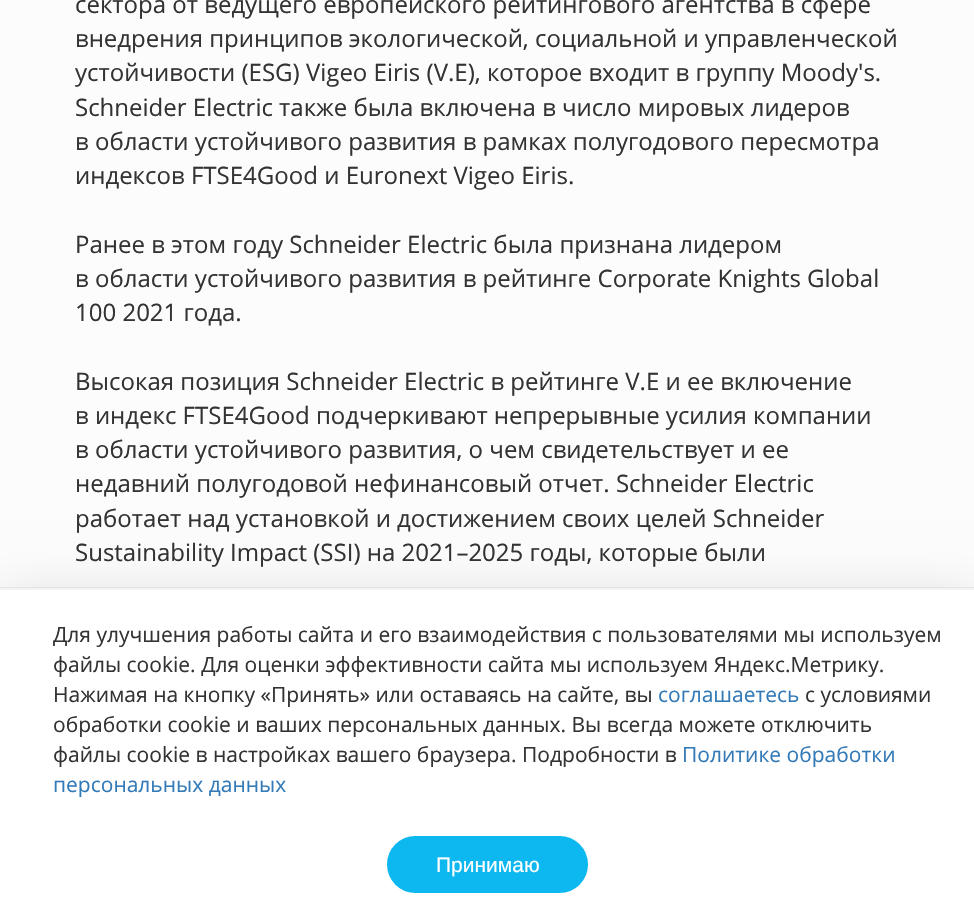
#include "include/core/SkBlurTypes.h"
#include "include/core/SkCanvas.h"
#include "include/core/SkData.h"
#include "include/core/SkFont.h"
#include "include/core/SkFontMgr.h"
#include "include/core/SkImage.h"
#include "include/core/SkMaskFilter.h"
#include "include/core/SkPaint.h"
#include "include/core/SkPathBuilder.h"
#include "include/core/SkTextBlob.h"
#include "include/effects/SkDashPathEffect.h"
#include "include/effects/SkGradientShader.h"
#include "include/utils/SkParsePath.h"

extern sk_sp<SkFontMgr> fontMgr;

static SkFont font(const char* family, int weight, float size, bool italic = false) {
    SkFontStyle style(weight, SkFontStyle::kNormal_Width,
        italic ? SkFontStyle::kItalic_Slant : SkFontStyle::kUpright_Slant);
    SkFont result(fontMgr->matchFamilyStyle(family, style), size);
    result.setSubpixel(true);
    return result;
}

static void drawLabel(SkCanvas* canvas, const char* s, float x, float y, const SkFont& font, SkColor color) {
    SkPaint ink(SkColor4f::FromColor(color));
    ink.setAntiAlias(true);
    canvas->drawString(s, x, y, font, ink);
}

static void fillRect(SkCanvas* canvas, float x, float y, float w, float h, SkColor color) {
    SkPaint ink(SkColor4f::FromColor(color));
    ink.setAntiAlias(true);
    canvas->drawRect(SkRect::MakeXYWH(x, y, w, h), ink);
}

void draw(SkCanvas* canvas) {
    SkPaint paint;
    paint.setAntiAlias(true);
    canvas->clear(0xFFFCFCFC);
    SkFont font1 = font("Open Sans", 400, 24);
    drawLabel(canvas, "сектора от ведущего европейского рейтингового агентства в сфере", 75, 13, font1, 0xFF333333);
    drawLabel(canvas, "внедрения принципов экологической, социальной и управленческой", 75, 47, font1, 0xFF333333);
    drawLabel(canvas, "устойчивости (ESG) Vigeo Eiris (V.E), которое входит в группу Moody's.", 75, 81, font1, 0xFF333333);
    drawLabel(canvas, "Schneider Electric также была включена в число мировых лидеров", 75, 116, font1, 0xFF333333);
    drawLabel(canvas, "в области устойчивого развития в рамках полугодового пересмотра", 75, 150, font1, 0xFF333333);
    drawLabel(canvas, "индексов FTSE4Good и Euronext Vigeo Eiris.", 75, 184, font1, 0xFF333333);
    drawLabel(canvas, "Ранее в этом году Schneider Electric была признана лидером", 75, 253, font1, 0xFF333333);
    drawLabel(canvas, "в области устойчивого развития в рейтинге Corporate Knights Global", 75, 287, font1, 0xFF333333);
    drawLabel(canvas, "100 2021 года.", 75, 321, font1, 0xFF333333);
    drawLabel(canvas, "Высокая позиция Schneider Electric в рейтинге V.E и ее включение", 75, 390, font1, 0xFF333333);
    drawLabel(canvas, "в индекс FTSE4Good подчеркивают непрерывные усилия компании", 75, 424, font1, 0xFF333333);
    drawLabel(canvas, "в области устойчивого развития, о чем свидетельствует и ее", 75, 458, font1, 0xFF333333);
    drawLabel(canvas, "недавний полугодовой нефинансовый отчет. Schneider Electric", 75, 492, font1, 0xFF333333);
    drawLabel(canvas, "работает над установкой и достижением своих целей Schneider", 75, 527, font1, 0xFF333333);
    drawLabel(canvas, "Sustainability Impact (SSI) на 2021–2025 годы, которые были", 75, 561, font1, 0xFF333333);
    paint.setStroke(true);
    paint.setStrokeWidth(2);
    paint.setColor(0x0F000000);
    canvas->drawRect(SkRect::MakeXYWH(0, 588, 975, 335), paint);
    paint.setStroke(false);
    paint.setColor(0x29000000);
    paint.setMaskFilter(SkMaskFilter::MakeBlur(kNormal_SkBlurStyle, 27));
    canvas->drawRect(SkRect::MakeXYWH(0, 603, 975, 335), paint);
    paint.setMaskFilter(nullptr);
    fillRect(canvas, 0, 590, 974, 332, 0xFFFFFFFF);
    fillRect(canvas, 0, 588, 974, 2, 0xFFF1F3F6);
    SkFont font2 = font("Open Sans", 400, 21);
    drawLabel(canvas, "Для улучшения работы сайта и его взаимодействия с пользователями мы используем", 53, 642, font2, 0xFF333333);
    drawLabel(canvas, "файлы cookie. Для оценки эффективности сайта мы используем Яндекс.Метрику.", 53, 672, font2, 0xFF333333);
    drawLabel(canvas, "Нажимая на кнопку «Принять» или оставаясь на сайте, вы", 53, 702, font2, 0xFF333333);
    drawLabel(canvas, "соглашаетесь", 658, 702, font2, 0xFF337AB7);
    drawLabel(canvas, "с условиями", 805, 702, font2, 0xFF333333);
    drawLabel(canvas, "обработки cookie и ваших персональных данных. Вы всегда можете отключить", 53, 732, font2, 0xFF333333);
    drawLabel(canvas, "файлы cookie в настройках вашего браузера. Подробности в", 53, 762, font2, 0xFF333333);
    drawLabel(canvas, "Политике обработки", 682, 762, font2, 0xFF337AB7);
    drawLabel(canvas, "персональных данных", 53, 792, font2, 0xFF337AB7);
    paint.setColor(0xFF0DB8F1);
    canvas->drawRoundRect(SkRect::MakeXYWH(388.5f, 837.5f, 198, 54), 27, 27, paint);
    paint.setStroke(true);
    paint.setStrokeWidth(3);
    canvas->drawRoundRect(SkRect::MakeXYWH(388.5f, 837.5f, 198, 54), 27, 27, paint);
    SkFont font3 = font("Liberation Sans", 400, 21);
    drawLabel(canvas, "Принимаю", 436, 872, font3, 0xFFFFFFFF);
}
